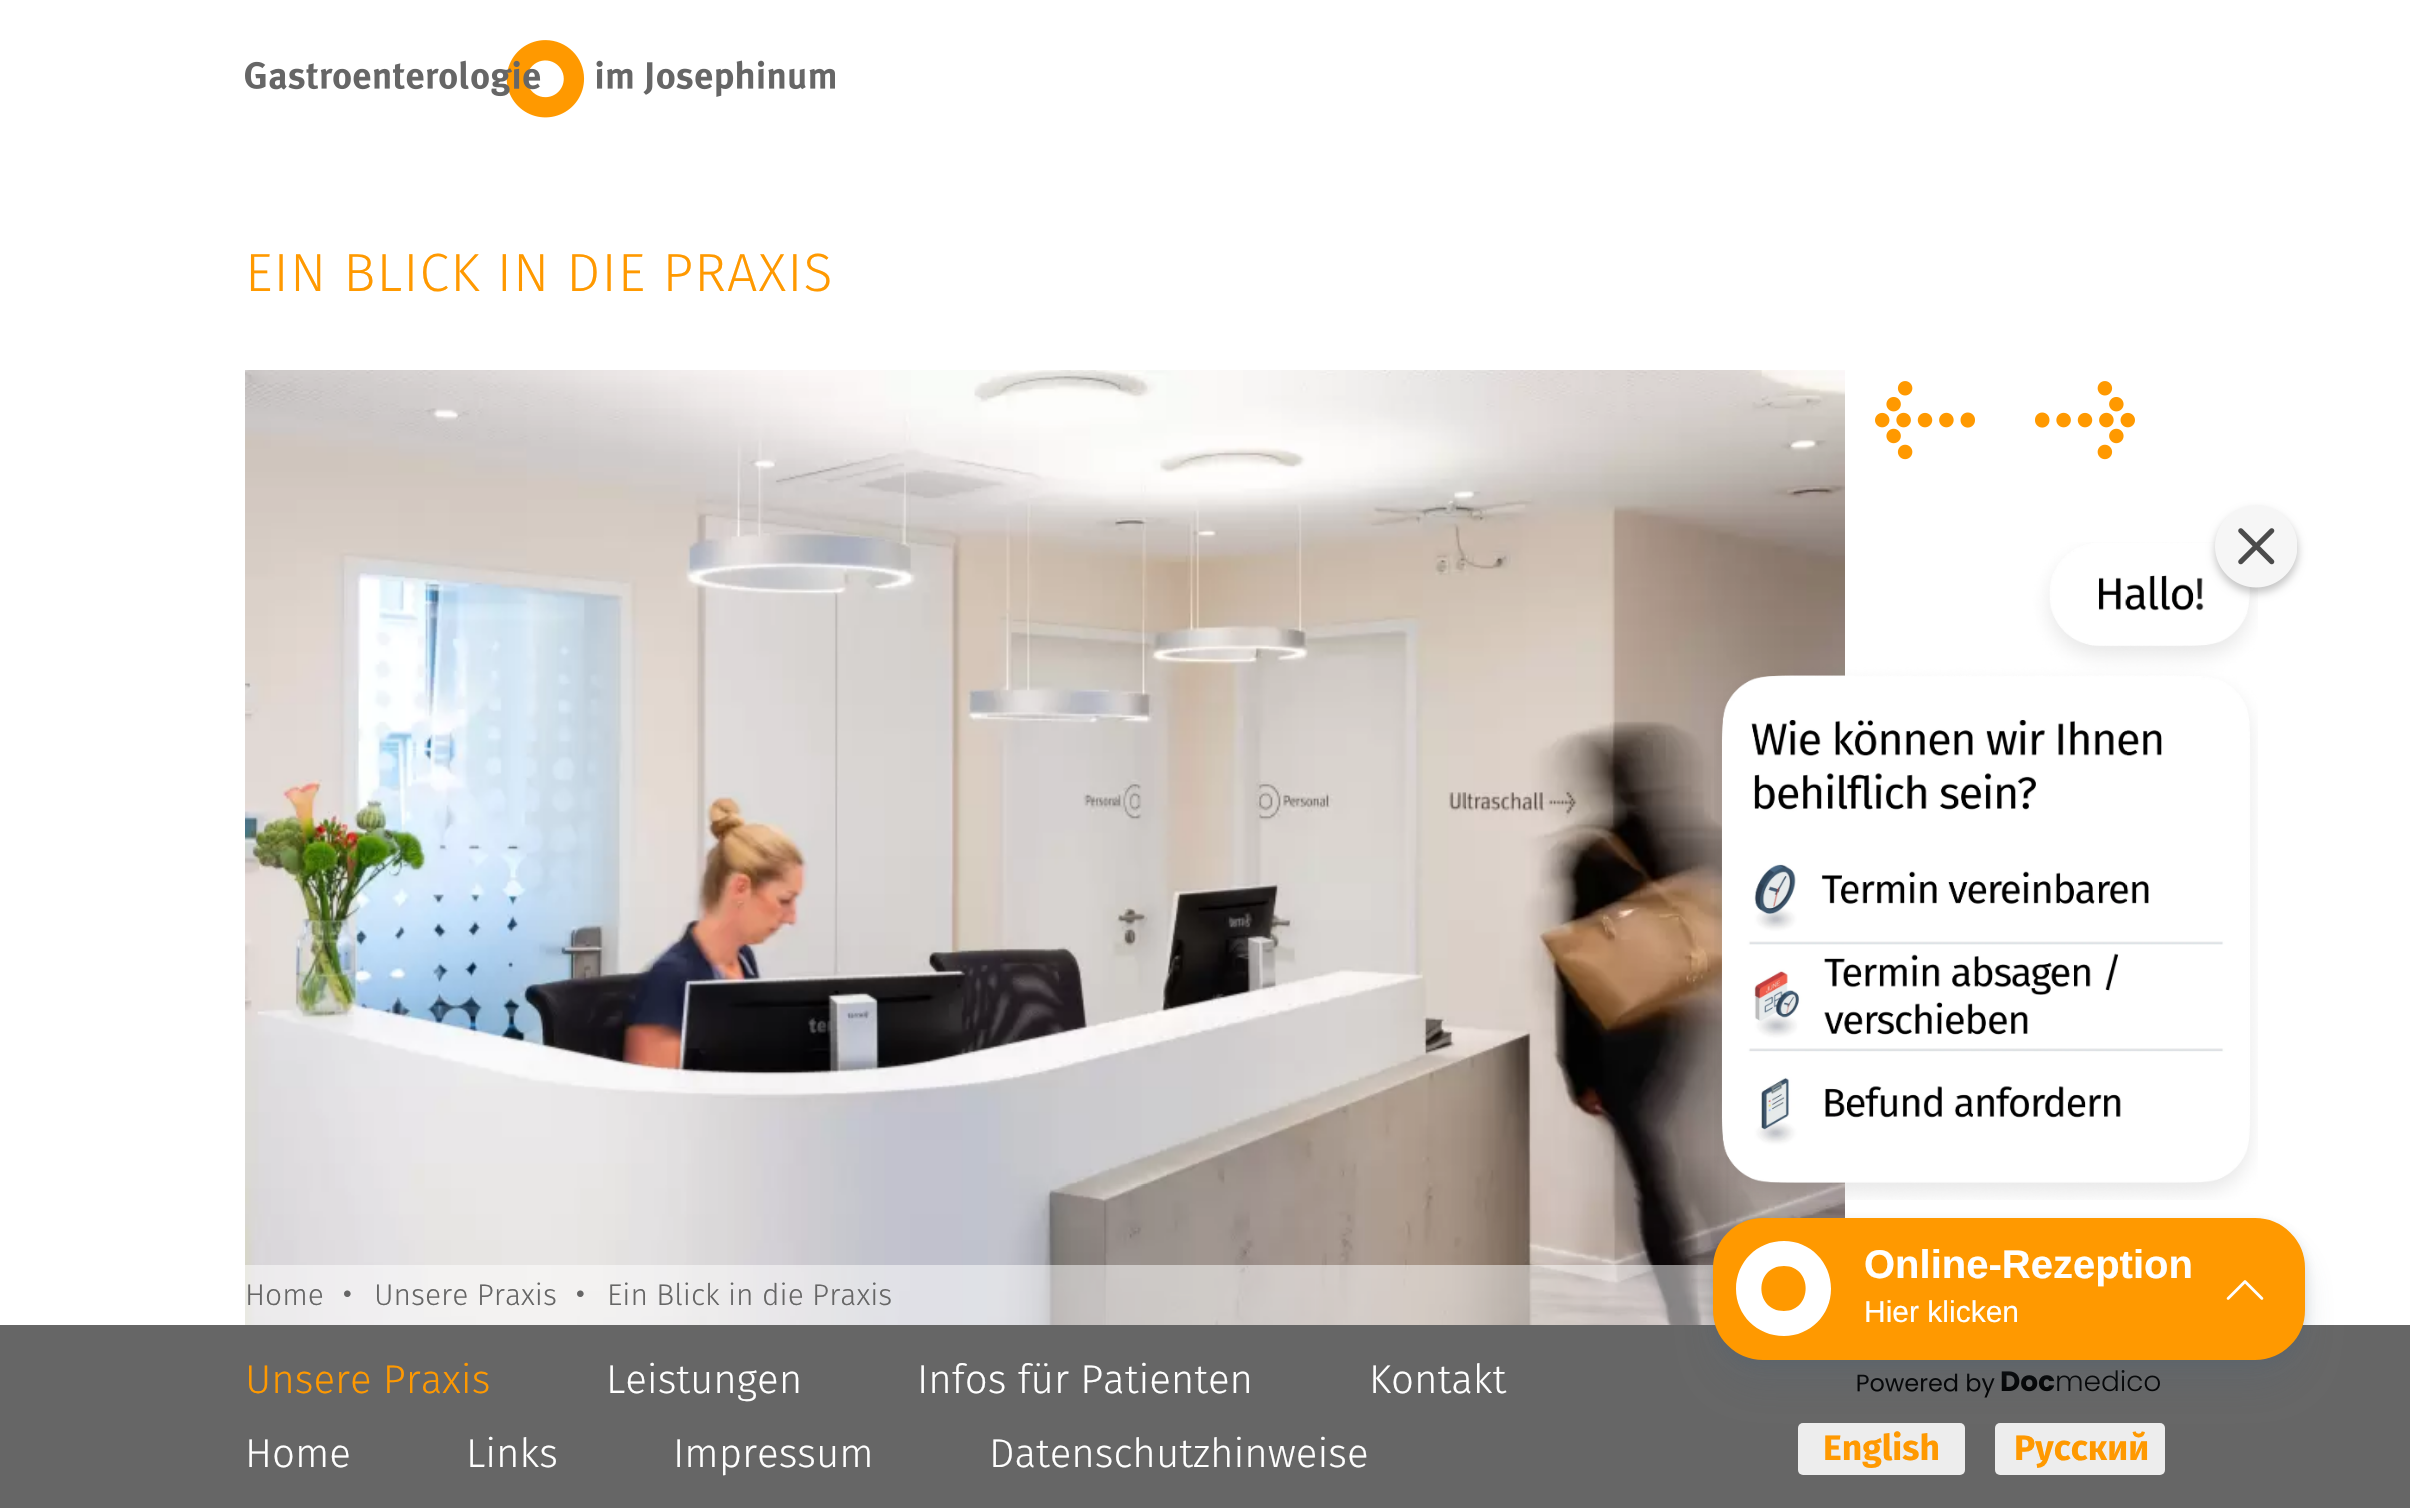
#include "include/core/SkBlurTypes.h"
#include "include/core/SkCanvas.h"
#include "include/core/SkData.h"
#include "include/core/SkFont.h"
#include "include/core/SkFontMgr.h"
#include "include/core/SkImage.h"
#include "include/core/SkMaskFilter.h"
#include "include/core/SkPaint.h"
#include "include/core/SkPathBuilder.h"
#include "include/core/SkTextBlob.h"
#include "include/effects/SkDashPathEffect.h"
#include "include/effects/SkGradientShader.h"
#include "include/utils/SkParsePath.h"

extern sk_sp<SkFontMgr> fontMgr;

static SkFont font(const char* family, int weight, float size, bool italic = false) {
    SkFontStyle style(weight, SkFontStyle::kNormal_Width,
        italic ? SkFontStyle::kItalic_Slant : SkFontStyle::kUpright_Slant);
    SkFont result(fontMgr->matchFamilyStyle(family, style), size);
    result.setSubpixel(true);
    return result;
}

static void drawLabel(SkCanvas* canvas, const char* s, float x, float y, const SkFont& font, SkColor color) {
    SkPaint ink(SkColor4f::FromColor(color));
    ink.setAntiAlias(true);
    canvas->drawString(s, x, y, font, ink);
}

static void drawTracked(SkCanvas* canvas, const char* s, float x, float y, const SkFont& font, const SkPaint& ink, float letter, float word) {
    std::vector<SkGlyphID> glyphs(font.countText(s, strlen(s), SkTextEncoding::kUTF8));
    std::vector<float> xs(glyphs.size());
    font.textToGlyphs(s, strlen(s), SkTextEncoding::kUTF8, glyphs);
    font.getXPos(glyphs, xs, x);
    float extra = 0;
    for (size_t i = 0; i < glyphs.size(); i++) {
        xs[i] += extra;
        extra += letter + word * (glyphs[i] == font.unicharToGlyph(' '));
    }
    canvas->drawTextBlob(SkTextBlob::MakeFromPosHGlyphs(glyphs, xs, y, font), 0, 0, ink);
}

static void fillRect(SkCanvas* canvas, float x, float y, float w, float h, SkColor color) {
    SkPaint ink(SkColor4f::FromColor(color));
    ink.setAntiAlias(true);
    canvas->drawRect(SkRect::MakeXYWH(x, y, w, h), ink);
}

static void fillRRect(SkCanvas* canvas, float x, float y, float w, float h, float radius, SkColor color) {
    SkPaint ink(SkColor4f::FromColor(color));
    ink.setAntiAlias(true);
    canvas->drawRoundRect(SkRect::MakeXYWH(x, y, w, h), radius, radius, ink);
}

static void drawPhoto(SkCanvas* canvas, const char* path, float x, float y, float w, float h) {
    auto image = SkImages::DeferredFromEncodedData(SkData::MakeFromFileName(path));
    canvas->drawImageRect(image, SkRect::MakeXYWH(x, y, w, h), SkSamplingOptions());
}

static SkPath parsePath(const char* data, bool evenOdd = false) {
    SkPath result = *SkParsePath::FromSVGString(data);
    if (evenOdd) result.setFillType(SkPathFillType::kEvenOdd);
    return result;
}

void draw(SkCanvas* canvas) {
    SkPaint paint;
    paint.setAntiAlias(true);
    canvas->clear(0xFFFFFFFF);
    drawPhoto(canvas, "assets/img1.png", 245, 40, 590, 78);
    SkFont font1 = font("Fira Sans", 300, 53.75f);
    paint.setColor(0xFFFF9900);
    drawTracked(canvas, "EIN BLICK IN DIE PRAXIS", 245, 291, font1, paint, 1.1f, 0);
    drawPhoto(canvas, "assets/img2.png", 245, 370, 1600, 955);
    drawPhoto(canvas, "assets/img3.png", 1875, 381, 100, 79);
    drawPhoto(canvas, "assets/img4.png", 2035, 381, 100, 79);
    drawPhoto(canvas, "assets/img6.png", 1714, 542, 544, 658);
    paint.setColor(0x3B000000);
    paint.setMaskFilter(SkMaskFilter::MakeBlur(kNormal_SkBlurStyle, 4));
    canvas->drawRoundRect(SkRect::MakeXYWH(2215, 510, 83, 83), 41.5f, 41.5f, paint);
    paint.setMaskFilter(nullptr);
    drawPhoto(canvas, "assets/img5.png", 2215, 505, 82, 83);
    fillRect(canvas, 0, 1325, 2410, 183, 0xFF666666);
    drawPhoto(canvas, "assets/img8.png", 1857, 1370, 303, 28);
    fillRect(canvas, 245, 1265, 1600, 60, 0x80FFFFFF);
    paint.setColor(0x33485F71);
    paint.setMaskFilter(SkMaskFilter::MakeBlur(kNormal_SkBlurStyle, 6));
    canvas->drawRoundRect(SkRect::MakeXYWH(1713, 1223, 592, 142), 50, 50, paint);
    paint.setMaskFilter(nullptr);
    fillRRect(canvas, 1798, 1423, 167, 52, 5, 0xFFEDEDED);
    fillRRect(canvas, 1995, 1423, 170, 52, 5, 0xFFEDEDED);
    paint.setColor(0x26485F71);
    paint.setMaskFilter(SkMaskFilter::MakeBlur(kNormal_SkBlurStyle, 16));
    canvas->drawRoundRect(SkRect::MakeXYWH(1713, 1243, 592, 142), 50, 50, paint);
    paint.setMaskFilter(nullptr);
    paint.setColor(0xFFFF9900);
    canvas->drawRoundRect(SkRect::MakeXYWH(1714.5f, 1219.5f, 589, 139), 48.5f, 48.5f, paint);
    paint.setStroke(true);
    paint.setStrokeWidth(3);
    canvas->drawRoundRect(SkRect::MakeXYWH(1714.5f, 1219.5f, 589, 139), 48.5f, 48.5f, paint);
    paint.setStroke(false);
    paint.setColor(0xFFFFFFFF);
    canvas->drawPath(parsePath("M1784 1241C1757 1241 1736 1262 1736 1289C1736 1315 1757 1336 1784 1336C1810 1336 1831 1315 1831 1289C1831 1262 1810 1241 1784 1241ZM1784 1311C1754 1311 1754 1266 1784 1266C1813 1266 1813 1311 1784 1311Z"), paint);
    SkFont font2 = font("Liberation Sans", 700, 40);
    drawLabel(canvas, "Online-Rezeption", 1864, 1278, font2, 0xFFFFFFFF);
    SkFont font3 = font("Liberation Sans", 400, 30);
    drawLabel(canvas, "Hier klicken", 1864, 1322, font3, 0xFFFFFFFF);
    drawPhoto(canvas, "assets/img7.png", 2226, 1280, 38, 20);
    SkFont font4 = font("Fira Sans", 300, 30);
    drawLabel(canvas, "Home", 245, 1305, font4, 0xFF666666);
    SkFont font5 = font("Fira Sans", 300, 44);
    drawLabel(canvas, "•", 341, 1309, font5, 0xFF666666);
    drawLabel(canvas, "Unsere Praxis", 374, 1305, font4, 0xFF666666);
    drawLabel(canvas, "•", 574, 1309, font5, 0xFF666666);
    drawLabel(canvas, "Ein Blick in die Praxis", 607, 1305, font4, 0xFF666666);
    SkFont font6 = font("Fira Sans", 300, 40.25f);
    drawLabel(canvas, "Unsere Praxis", 245, 1393, font6, 0xFFFF9900);
    drawLabel(canvas, "Leistungen", 606, 1393, font6, 0xFFFFFFFF);
    drawLabel(canvas, "Infos für Patienten", 917, 1393, font6, 0xFFFFFFFF);
    drawLabel(canvas, "Kontakt", 1369, 1393, font6, 0xFFFFFFFF);
    drawLabel(canvas, "Home", 245, 1467, font6, 0xFFFFFFFF);
    drawLabel(canvas, "Links", 466, 1467, font6, 0xFFFFFFFF);
    drawLabel(canvas, "Impressum", 673, 1467, font6, 0xFFFFFFFF);
    drawLabel(canvas, "Datenschutzhinweise", 989, 1467, font6, 0xFFFFFFFF);
    SkFont font7 = font("Fira Sans", 700, 35.5f);
    drawLabel(canvas, "English", 1823, 1460, font7, 0xFFFF9900);
    drawLabel(canvas, "Русский", 2014, 1460, font7, 0xFFFF9900);
}
